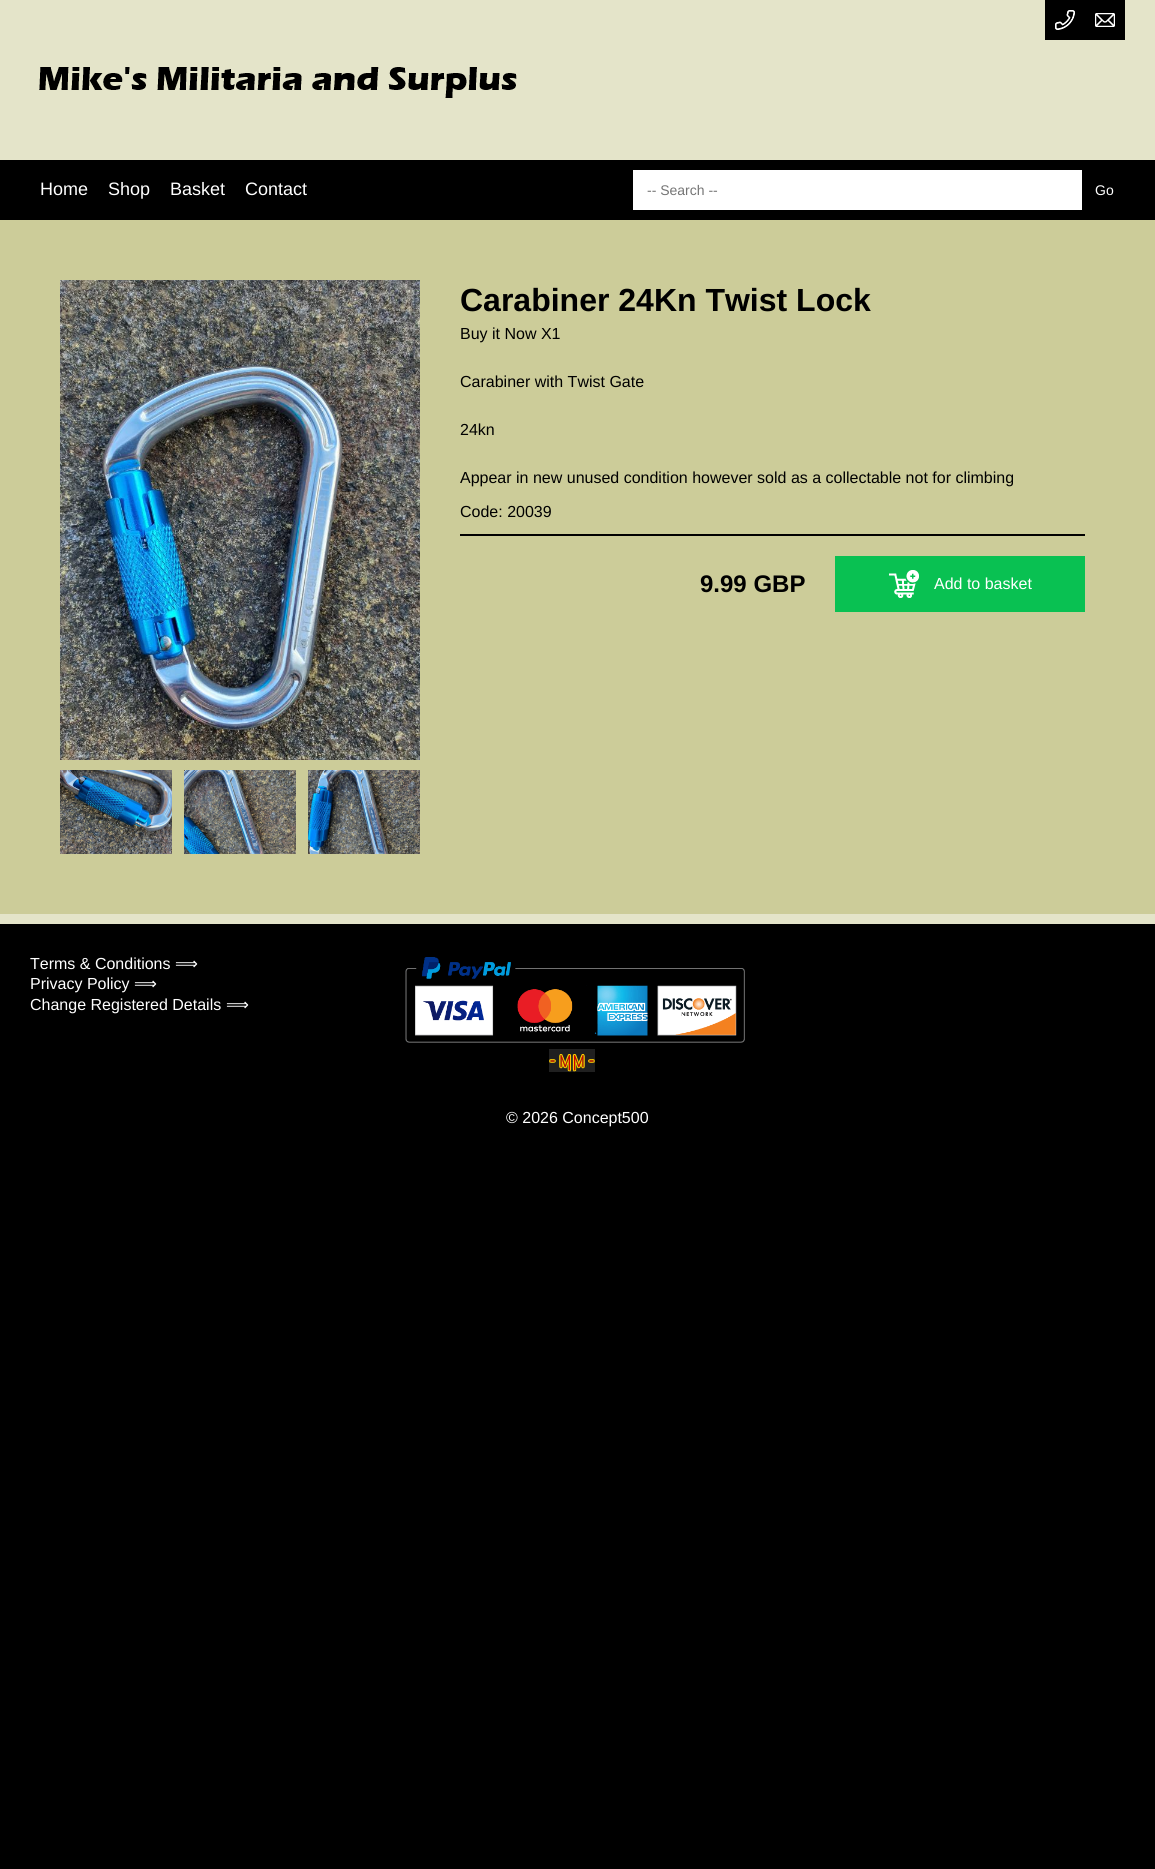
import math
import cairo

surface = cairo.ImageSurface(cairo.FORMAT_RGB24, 1155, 1869)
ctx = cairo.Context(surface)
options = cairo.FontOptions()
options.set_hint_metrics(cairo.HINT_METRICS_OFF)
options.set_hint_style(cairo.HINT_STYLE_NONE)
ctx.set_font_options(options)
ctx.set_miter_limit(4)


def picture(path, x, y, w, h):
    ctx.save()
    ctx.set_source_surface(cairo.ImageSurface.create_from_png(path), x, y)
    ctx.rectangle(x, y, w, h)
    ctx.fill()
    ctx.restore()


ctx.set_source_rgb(0, 0, 0)
ctx.paint()
ctx.set_source_rgb(0.894, 0.894, 0.788)
ctx.rectangle(0, 0, 1155, 160)
ctx.fill()
ctx.set_source_rgb(0, 0, 0)
ctx.rectangle(1045, 0, 80, 40)
ctx.fill()
picture("img1.png", 1055, 10, 20, 20)
picture("img2.png", 1095, 13, 20, 14)
picture("img3.png", 39, 67, 478, 31)
ctx.select_font_face("Liberation Sans")
ctx.set_font_size(18)
ctx.set_source_rgb(1, 1, 1)
ctx.move_to(40, 195)
ctx.show_text("Home")
ctx.move_to(108, 195)
ctx.show_text("Shop")
ctx.move_to(170, 195)
ctx.show_text("Basket")
ctx.move_to(245, 195)
ctx.show_text("Contact")
ctx.rectangle(633, 170, 449, 40)
ctx.fill()
ctx.set_font_size(14)
ctx.set_source_rgb(0.459, 0.459, 0.459)
ctx.move_to(647, 195)
ctx.show_text("-- Search --")
ctx.set_source_rgb(1, 1, 1)
ctx.move_to(1095, 195)
ctx.show_text("Go")
ctx.set_source_rgb(0.8, 0.8, 0.6)
ctx.rectangle(0, 220, 1155, 694)
ctx.fill()
picture("img4.png", 60, 280, 360, 480)
picture("img5.png", 60, 770, 112, 84)
picture("img6.png", 184, 770, 112, 84)
picture("img7.png", 308, 770, 112, 84)
ctx.select_font_face("Liberation Sans", cairo.FONT_SLANT_NORMAL, cairo.FONT_WEIGHT_BOLD)
ctx.set_font_size(32)
ctx.set_source_rgb(0, 0, 0)
ctx.move_to(460, 311)
ctx.show_text("Carabiner 24Kn Twist Lock")
ctx.select_font_face("Liberation Sans")
ctx.set_font_size(16)
ctx.move_to(460, 339)
ctx.show_text("Buy it Now X1")
ctx.move_to(460, 387)
ctx.show_text("Carabiner with Twist Gate")
ctx.move_to(460, 435)
ctx.show_text("24kn")
ctx.move_to(460, 483)
ctx.show_text("Appear in new unused condition however sold as a collectable not for climbing")
ctx.move_to(460, 517)
ctx.show_text("Code: 20039")
ctx.rectangle(460, 534, 625, 2)
ctx.fill()
ctx.select_font_face("Liberation Sans", cairo.FONT_SLANT_NORMAL, cairo.FONT_WEIGHT_BOLD)
ctx.set_font_size(24)
ctx.move_to(700, 592)
ctx.show_text("9.99 GBP")
ctx.set_source_rgb(0.039, 0.757, 0.322)
ctx.rectangle(835, 556, 250, 56)
ctx.fill()
picture("img8.png", 889, 570, 30, 28)
ctx.select_font_face("Liberation Sans")
ctx.set_font_size(16)
ctx.set_source_rgb(1, 1, 1)
ctx.move_to(934, 589)
ctx.show_text("Add to basket")
ctx.set_source_rgb(0.894, 0.894, 0.788)
ctx.rectangle(0, 914, 1155, 10)
ctx.fill()
ctx.set_source_rgb(1, 1, 1)
ctx.move_to(30, 969)
ctx.show_text("Terms & Conditions")
ctx.select_font_face("DejaVu Sans")
ctx.move_to(175, 969)
ctx.show_text("⟹")
ctx.select_font_face("Liberation Sans")
ctx.move_to(30, 989)
ctx.show_text("Privacy Policy")
ctx.select_font_face("DejaVu Sans")
ctx.move_to(134, 989)
ctx.show_text("⟹")
ctx.select_font_face("Liberation Sans")
ctx.move_to(30, 1010)
ctx.show_text("Change Registered Details")
ctx.select_font_face("DejaVu Sans")
ctx.move_to(226, 1010)
ctx.show_text("⟹")
picture("img9.png", 405, 957, 340, 86)
picture("img10.png", 549, 1049, 46, 23)
ctx.select_font_face("Liberation Sans")
ctx.move_to(506, 1123)
ctx.show_text("© 2026 Concept500")
surface.write_to_png("page.png")
